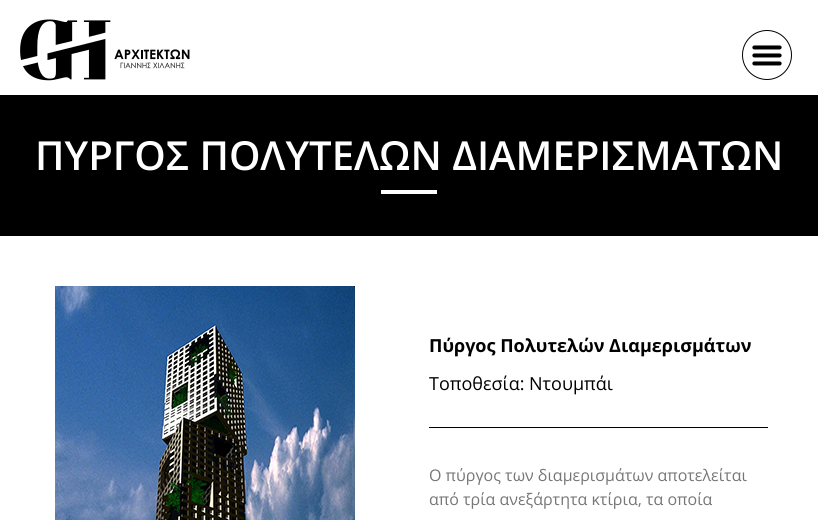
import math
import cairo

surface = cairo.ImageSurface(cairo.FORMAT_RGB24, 818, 520)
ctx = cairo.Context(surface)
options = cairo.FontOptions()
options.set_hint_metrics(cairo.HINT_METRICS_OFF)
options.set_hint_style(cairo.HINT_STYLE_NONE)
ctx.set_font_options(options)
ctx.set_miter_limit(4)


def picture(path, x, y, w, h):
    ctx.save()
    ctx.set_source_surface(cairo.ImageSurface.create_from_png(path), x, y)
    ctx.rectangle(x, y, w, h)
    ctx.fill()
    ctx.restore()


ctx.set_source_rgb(1, 1, 1)
ctx.paint()
picture("img1.png", 20, 19, 170, 62)
ctx.arc(767, 55, 24.5, 0, 2 * math.pi)
ctx.set_source_rgb(0, 0, 0)
ctx.set_line_width(1)
ctx.stroke()
picture("img2.png", 752, 45, 30, 21)
ctx.rectangle(0, 95, 818, 141)
ctx.fill()
ctx.select_font_face("Open Sans SemiBold")
ctx.set_font_size(40)
ctx.set_source_rgb(1, 1, 1)
ctx.move_to(35, 170)
ctx.show_text("ΠΥΡΓΟΣ ΠΟΛΥΤΕΛΩΝ ΔΙΑΜΕΡΙΣΜΑΤΩΝ")
ctx.rectangle(381, 190, 56, 4)
ctx.fill()
picture("img3.png", 55, 286, 300, 234)
ctx.select_font_face("Open Sans", cairo.FONT_SLANT_NORMAL, cairo.FONT_WEIGHT_BOLD)
ctx.set_font_size(18)
ctx.set_source_rgb(0, 0, 0)
ctx.move_to(429, 352)
ctx.show_text("Πύργος Πολυτελών Διαμερισμάτων")
ctx.select_font_face("Open Sans")
ctx.move_to(429, 390)
ctx.show_text("Τοποθεσία: Ντουμπάι")
ctx.rectangle(429, 427, 339, 1)
ctx.fill()
ctx.set_font_size(16)
ctx.set_source_rgb(0.463, 0.463, 0.463)
ctx.move_to(429, 481)
ctx.show_text("Ο πύργος των διαμερισμάτων αποτελείται")
ctx.move_to(429, 505)
ctx.show_text("από τρία ανεξάρτητα κτίρια, τα οποία")
surface.write_to_png("page.png")
